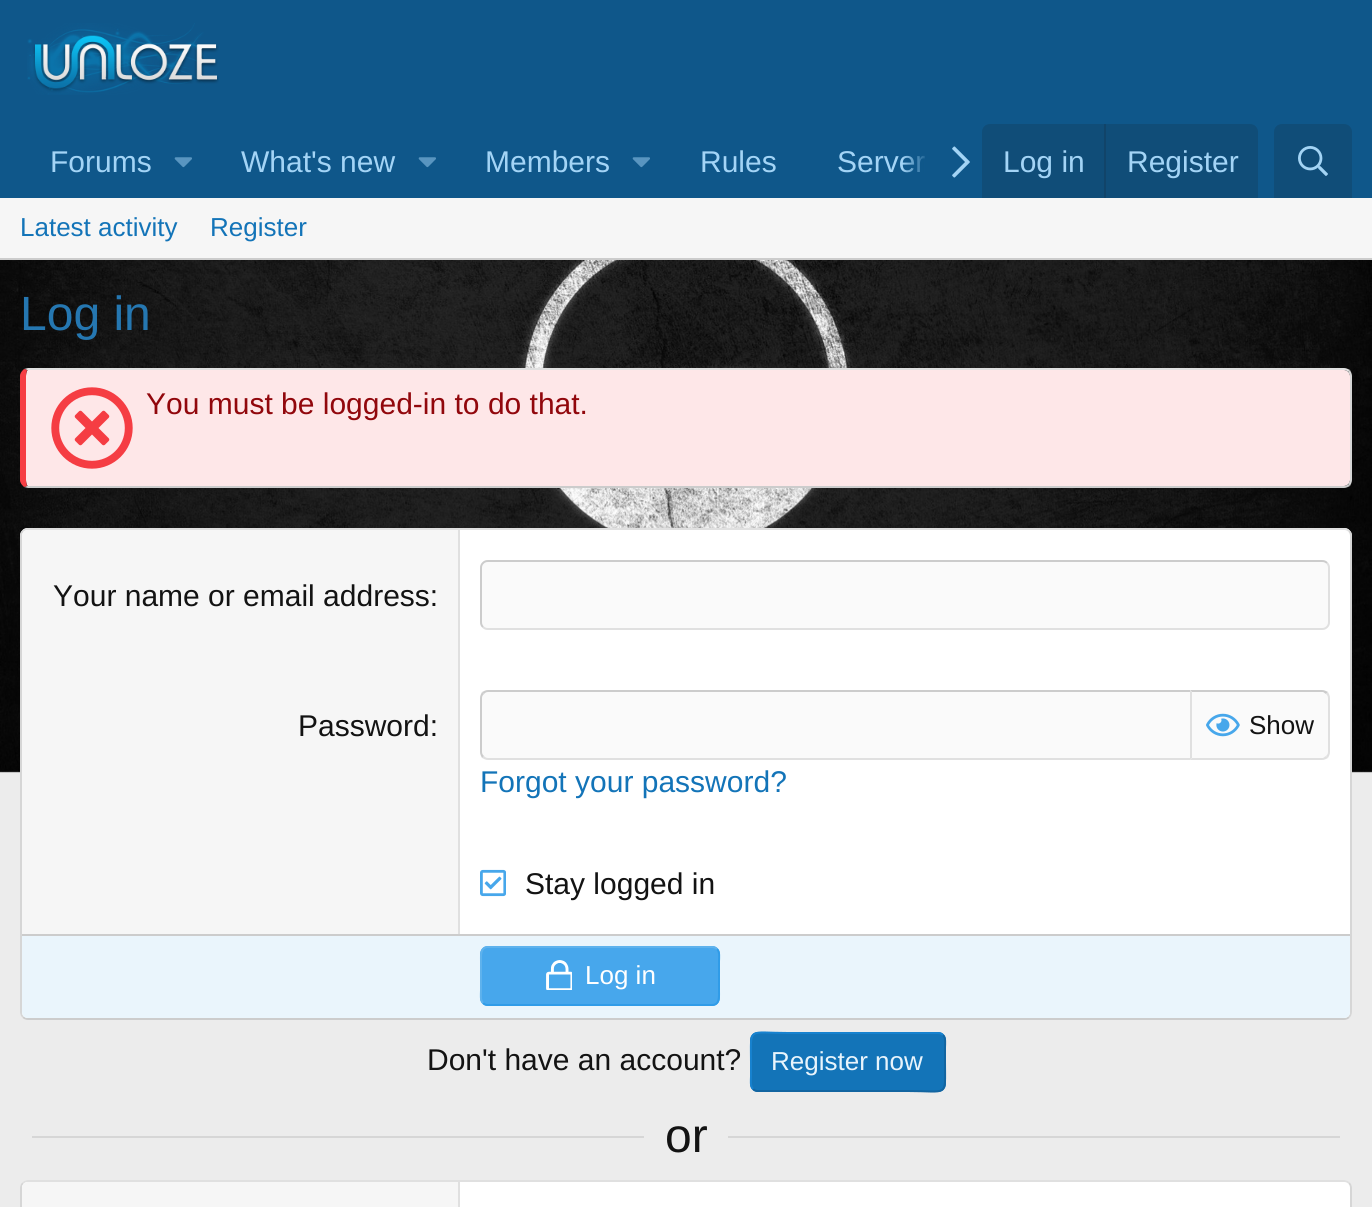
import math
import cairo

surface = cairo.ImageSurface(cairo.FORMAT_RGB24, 1372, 1207)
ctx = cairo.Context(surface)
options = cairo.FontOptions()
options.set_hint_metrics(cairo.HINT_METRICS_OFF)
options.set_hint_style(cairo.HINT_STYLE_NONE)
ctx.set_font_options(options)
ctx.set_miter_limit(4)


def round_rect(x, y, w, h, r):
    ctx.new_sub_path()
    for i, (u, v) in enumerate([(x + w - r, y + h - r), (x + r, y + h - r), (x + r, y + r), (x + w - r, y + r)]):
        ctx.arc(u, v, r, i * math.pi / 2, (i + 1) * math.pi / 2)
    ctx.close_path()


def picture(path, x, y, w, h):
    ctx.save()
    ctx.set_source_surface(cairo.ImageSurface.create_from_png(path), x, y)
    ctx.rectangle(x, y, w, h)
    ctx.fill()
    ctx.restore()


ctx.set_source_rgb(0.922, 0.922, 0.922)
ctx.paint()
picture("img1.png", 0, 260, 1372, 513)
ctx.set_source_rgb(0.059, 0.341, 0.541)
ctx.rectangle(0, 0, 1372, 198)
ctx.fill()
picture("img2.png", 27, 23, 192, 72)
ctx.select_font_face("Liberation Sans")
ctx.set_font_size(30)
ctx.set_source_rgb(0.639, 0.831, 0.961)
ctx.move_to(50, 172)
ctx.show_text("Forums")
picture("img3.png", 174, 157, 18, 11)
ctx.move_to(241, 172)
ctx.show_text("What's new")
picture("img3.png", 418, 157, 18, 11)
ctx.move_to(485, 172)
ctx.show_text("Members")
picture("img3.png", 632, 157, 18, 11)
ctx.move_to(700, 172)
ctx.show_text("Rules")
ctx.move_to(837, 172)
ctx.show_text("Server")
gradient = cairo.LinearGradient(902, 161, 982, 161)
gradient.add_color_stop_rgba(0, 0.059, 0.341, 0.541, 0)
gradient.add_color_stop_rgba(0.33, 0.059, 0.341, 0.541, 1)
ctx.set_source(gradient)
ctx.rectangle(903, 155, 22, 18)
ctx.fill()
picture("img4.png", 952, 146, 18, 32)
ctx.set_source_rgb(0.063, 0.302, 0.471)
ctx.new_path()
ctx.move_to(990, 124)
ctx.line_to(1250, 124)
ctx.curve_to(1254.5, 124, 1258, 127.5, 1258, 132)
ctx.line_to(1258, 198)
ctx.line_to(982, 198)
ctx.line_to(982, 132)
ctx.curve_to(982, 127.5, 985.5, 124, 990, 124)
ctx.close_path()
ctx.fill()
ctx.set_source_rgb(0.639, 0.831, 0.961)
ctx.move_to(1003, 172)
ctx.show_text("Log in")
ctx.set_source_rgb(0.067, 0.267, 0.412)
ctx.rectangle(1104, 124, 2, 74)
ctx.fill()
ctx.set_source_rgb(0.639, 0.831, 0.961)
ctx.move_to(1127, 172)
ctx.show_text("Register")
ctx.set_source_rgb(0.063, 0.302, 0.471)
ctx.new_path()
ctx.move_to(1282, 124)
ctx.line_to(1344, 124)
ctx.curve_to(1348.5, 124, 1352, 127.5, 1352, 132)
ctx.line_to(1352, 198)
ctx.line_to(1274, 198)
ctx.line_to(1274, 132)
ctx.curve_to(1274, 127.5, 1277.5, 124, 1282, 124)
ctx.close_path()
ctx.fill()
picture("img5.png", 1298, 146, 30, 30)
ctx.set_source_rgb(0.961, 0.961, 0.961)
ctx.rectangle(0, 198, 1372, 60)
ctx.fill()
ctx.set_source_rgb(0.8, 0.8, 0.8)
ctx.rectangle(0, 258, 1372, 2)
ctx.fill()
ctx.set_font_size(26)
ctx.set_source_rgb(0.078, 0.455, 0.722)
ctx.move_to(20, 236)
ctx.show_text("Latest activity")
ctx.move_to(210, 236)
ctx.show_text("Register")
ctx.set_font_size(48)
ctx.set_source_rgb(0.145, 0.467, 0.694)
ctx.move_to(20, 330)
ctx.show_text("Log in")
ctx.set_source_rgb(0.996, 0.906, 0.91)
ctx.new_path()
ctx.move_to(28, 370)
ctx.line_to(1344, 370)
ctx.curve_to(1347, 370, 1350, 373, 1350, 376)
ctx.line_to(1350, 480)
ctx.curve_to(1350, 483, 1347, 486, 1344, 486)
ctx.line_to(28, 486)
ctx.curve_to(27, 486, 26, 483, 26, 480)
ctx.line_to(26, 376)
ctx.curve_to(26, 373, 27, 370, 28, 370)
ctx.close_path()
ctx.fill()
ctx.set_source_rgb(0.878, 0.878, 0.878)
ctx.new_path()
ctx.move_to(28, 368)
ctx.line_to(24, 369)
ctx.line_to(27, 370)
ctx.line_to(28, 370)
ctx.line_to(1344, 370)
ctx.curve_to(1346, 370, 1347, 371, 1348, 372)
ctx.line_to(1350, 370)
ctx.curve_to(1348, 369, 1346, 368, 1344, 368)
ctx.close_path()
ctx.fill()
ctx.set_source_rgb(0.839, 0.839, 0.839)
ctx.new_path()
ctx.move_to(1352, 480)
ctx.line_to(1352, 376)
ctx.curve_to(1352, 374, 1351, 372, 1350, 370)
ctx.line_to(1348, 372)
ctx.line_to(1350, 375)
ctx.line_to(1350, 481)
ctx.line_to(1348, 484)
ctx.line_to(1350, 486)
ctx.curve_to(1351, 484, 1352, 482, 1352, 480)
ctx.close_path()
ctx.fill()
ctx.set_source_rgb(0.8, 0.8, 0.8)
ctx.new_path()
ctx.move_to(28, 488)
ctx.line_to(1344, 488)
ctx.curve_to(1346, 488, 1348, 487, 1350, 486)
ctx.line_to(1348, 484)
ctx.curve_to(1347, 485, 1346, 486, 1344, 486)
ctx.line_to(28, 486)
ctx.line_to(27, 486)
ctx.line_to(24, 487)
ctx.close_path()
ctx.fill()
ctx.set_source_rgb(0.961, 0.239, 0.263)
ctx.new_path()
ctx.move_to(20, 376)
ctx.line_to(20, 480)
ctx.curve_to(20, 483, 22, 485, 24, 487)
ctx.line_to(27, 486)
ctx.curve_to(27, 485, 26, 482, 26, 480)
ctx.line_to(26, 376)
ctx.curve_to(26, 374, 27, 371, 27, 370)
ctx.line_to(24, 369)
ctx.curve_to(22, 371, 20, 373, 20, 376)
ctx.close_path()
ctx.fill()
picture("img6.png", 51, 387, 82, 82)
ctx.set_font_size(30)
ctx.set_source_rgb(0.569, 0.031, 0.047)
ctx.move_to(146, 414)
ctx.show_text("You must be logged-in to do that.")
ctx.set_source_rgb(1, 1, 1)
round_rect(20, 528, 1332, 492, 8)
ctx.fill()
ctx.new_path()
ctx.move_to(23, 531)
ctx.curve_to(24.5, 529.5, 26, 529, 28, 529)
ctx.line_to(1344, 529)
ctx.curve_to(1346, 529, 1347.5, 529.5, 1349, 531)
ctx.set_source_rgb(0.878, 0.878, 0.878)
ctx.stroke()
ctx.new_path()
ctx.move_to(1349, 531)
ctx.curve_to(1350.5, 532.5, 1351, 534, 1351, 536)
ctx.line_to(1351, 1012)
ctx.curve_to(1351, 1014, 1350.5, 1015.5, 1349, 1017)
ctx.set_source_rgb(0.839, 0.839, 0.839)
ctx.stroke()
ctx.new_path()
ctx.move_to(1349, 1017)
ctx.curve_to(1347.5, 1018.5, 1346, 1019, 1344, 1019)
ctx.line_to(28, 1019)
ctx.curve_to(26, 1019, 24.5, 1018.5, 23, 1017)
ctx.set_source_rgb(0.8, 0.8, 0.8)
ctx.stroke()
ctx.new_path()
ctx.move_to(23, 1017)
ctx.curve_to(21.5, 1015.5, 21, 1014, 21, 1012)
ctx.line_to(21, 536)
ctx.curve_to(21, 534, 21.5, 532.5, 23, 531)
ctx.set_source_rgb(0.839, 0.839, 0.839)
ctx.stroke()
ctx.set_source_rgb(0.961, 0.961, 0.961)
ctx.new_path()
ctx.move_to(28, 530)
ctx.line_to(460, 530)
ctx.line_to(460, 660)
ctx.line_to(22, 660)
ctx.line_to(22, 536)
ctx.curve_to(22, 532.5, 24.5, 530, 28, 530)
ctx.close_path()
ctx.fill()
ctx.set_source_rgb(0.878, 0.878, 0.878)
ctx.rectangle(458, 530, 2, 404)
ctx.fill()
ctx.set_source_rgb(0.078, 0.078, 0.078)
ctx.move_to(53, 606)
ctx.show_text("Your name or email address:")
ctx.set_source_rgb(0.98, 0.98, 0.98)
round_rect(480, 560, 850, 70, 8)
ctx.fill()
ctx.new_path()
ctx.move_to(1327, 563)
ctx.curve_to(1328.5, 564.5, 1329, 566, 1329, 568)
ctx.line_to(1329, 622)
ctx.curve_to(1329, 624, 1328.5, 625.5, 1327, 627)
ctx.curve_to(1325.5, 628.5, 1324, 629, 1322, 629)
ctx.line_to(488, 629)
ctx.curve_to(486, 629, 484.5, 628.5, 483, 627)
ctx.set_source_rgb(0.878, 0.878, 0.878)
ctx.stroke()
ctx.new_path()
ctx.move_to(483, 627)
ctx.curve_to(481.5, 625.5, 481, 624, 481, 622)
ctx.line_to(481, 568)
ctx.curve_to(481, 566, 481.5, 564.5, 483, 563)
ctx.curve_to(484.5, 561.5, 486, 561, 488, 561)
ctx.line_to(1322, 561)
ctx.curve_to(1324, 561, 1325.5, 561.5, 1327, 563)
ctx.set_source_rgb(0.8, 0.8, 0.8)
ctx.stroke()
ctx.set_source_rgb(0.961, 0.961, 0.961)
ctx.rectangle(22, 660, 436, 274)
ctx.fill()
ctx.set_source_rgb(0.078, 0.078, 0.078)
ctx.move_to(298, 736)
ctx.show_text("Password:")
ctx.set_source_rgb(0.98, 0.98, 0.98)
ctx.new_path()
ctx.move_to(488, 690)
ctx.line_to(1190, 690)
ctx.line_to(1190, 760)
ctx.line_to(488, 760)
ctx.curve_to(483.5, 760, 480, 756.5, 480, 752)
ctx.line_to(480, 698)
ctx.curve_to(480, 693.5, 483.5, 690, 488, 690)
ctx.close_path()
ctx.fill()
ctx.set_source_rgb(0.8, 0.8, 0.8)
ctx.new_path()
ctx.move_to(488, 690)
ctx.curve_to(486, 690, 484, 691, 482, 692)
ctx.line_to(484, 694)
ctx.curve_to(485, 693, 486, 692, 488, 692)
ctx.line_to(1190, 692)
ctx.line_to(1190, 690)
ctx.close_path()
ctx.fill()
ctx.set_source_rgb(0.878, 0.878, 0.878)
ctx.new_path()
ctx.move_to(1190, 760)
ctx.line_to(1190, 758)
ctx.line_to(488, 758)
ctx.curve_to(486, 758, 485, 757, 484, 756)
ctx.line_to(482, 758)
ctx.curve_to(484, 759, 486, 760, 488, 760)
ctx.close_path()
ctx.fill()
ctx.set_source_rgb(0.8, 0.8, 0.8)
ctx.new_path()
ctx.move_to(480, 698)
ctx.line_to(480, 752)
ctx.curve_to(480, 754, 481, 756, 482, 758)
ctx.line_to(484, 756)
ctx.curve_to(483, 755, 482, 754, 482, 752)
ctx.line_to(482, 698)
ctx.curve_to(482, 696, 483, 695, 484, 694)
ctx.line_to(482, 692)
ctx.curve_to(481, 694, 480, 696, 480, 698)
ctx.close_path()
ctx.fill()
ctx.set_source_rgb(0.98, 0.98, 0.98)
ctx.new_path()
ctx.move_to(1190, 690)
ctx.line_to(1322, 690)
ctx.curve_to(1326.5, 690, 1330, 693.5, 1330, 698)
ctx.line_to(1330, 752)
ctx.curve_to(1330, 756.5, 1326.5, 760, 1322, 760)
ctx.line_to(1190, 760)
ctx.close_path()
ctx.fill()
ctx.set_source_rgb(0.8, 0.8, 0.8)
ctx.new_path()
ctx.move_to(1190, 690)
ctx.line_to(1192, 692)
ctx.line_to(1323, 692)
ctx.line_to(1326, 694)
ctx.line_to(1328, 692)
ctx.curve_to(1326, 691, 1324, 690, 1322, 690)
ctx.close_path()
ctx.fill()
ctx.set_source_rgb(0.878, 0.878, 0.878)
ctx.new_path()
ctx.move_to(1330, 752)
ctx.line_to(1330, 698)
ctx.curve_to(1330, 696, 1329, 694, 1328, 692)
ctx.line_to(1326, 694)
ctx.curve_to(1327, 695, 1328, 696, 1328, 698)
ctx.line_to(1328, 752)
ctx.curve_to(1328, 754, 1327, 755, 1326, 756)
ctx.line_to(1328, 758)
ctx.curve_to(1329, 756, 1330, 754, 1330, 752)
ctx.close_path()
ctx.fill()
ctx.new_path()
ctx.move_to(1322, 760)
ctx.curve_to(1324, 760, 1326, 759, 1328, 758)
ctx.line_to(1326, 756)
ctx.line_to(1323, 758)
ctx.line_to(1192, 758)
ctx.line_to(1190, 760)
ctx.close_path()
ctx.fill()
ctx.new_path()
ctx.move_to(1190, 690)
ctx.line_to(1190, 760)
ctx.line_to(1192, 758)
ctx.line_to(1192, 692)
ctx.close_path()
ctx.fill()
picture("img7.png", 1206, 713, 34, 24)
ctx.set_font_size(26)
ctx.set_source_rgb(0.078, 0.078, 0.078)
ctx.move_to(1249, 734)
ctx.show_text("Show")
ctx.set_font_size(30)
ctx.set_source_rgb(0.078, 0.455, 0.722)
ctx.move_to(480, 792)
ctx.show_text("Forgot your password?")
picture("img8.png", 480, 869, 26, 28)
ctx.set_source_rgb(0.078, 0.078, 0.078)
ctx.move_to(525, 894)
ctx.show_text("Stay logged in")
ctx.set_source_rgba(0.91, 0.957, 0.988, 0.9)
ctx.new_path()
ctx.move_to(22, 934)
ctx.line_to(1350, 934)
ctx.line_to(1350, 1012)
ctx.curve_to(1350, 1015.5, 1347.5, 1018, 1344, 1018)
ctx.line_to(28, 1018)
ctx.curve_to(24.5, 1018, 22, 1015.5, 22, 1012)
ctx.close_path()
ctx.fill()
ctx.set_source_rgb(0.8, 0.8, 0.8)
ctx.rectangle(22, 934, 1328, 2)
ctx.fill()
ctx.set_source_rgb(0.278, 0.655, 0.922)
round_rect(480, 946, 240, 60, 8)
ctx.fill()
ctx.new_path()
ctx.move_to(717, 949)
ctx.curve_to(720, 952, 719, 957.5, 719, 961.5)
ctx.line_to(719, 990.5)
ctx.curve_to(719, 996, 720, 1005, 712, 1005)
ctx.line_to(487.5, 1005)
ctx.curve_to(485.5, 1005, 484, 1004, 483, 1003)
ctx.set_source_rgb(0.188, 0.612, 0.91)
ctx.stroke()
ctx.new_path()
ctx.move_to(483, 1003)
ctx.curve_to(480, 1000, 481, 994.5, 481, 990.5)
ctx.line_to(481, 961.5)
ctx.curve_to(481, 956, 480, 947, 488, 947)
ctx.line_to(712.5, 947)
ctx.curve_to(714.5, 947, 716, 948, 717, 949)
ctx.set_source_rgb(0.369, 0.698, 0.929)
ctx.stroke()
picture("img9.png", 546, 960, 26, 30)
ctx.set_font_size(26)
ctx.set_source_rgb(1, 1, 1)
ctx.move_to(585, 984)
ctx.show_text("Log in")
ctx.set_font_size(30)
ctx.set_source_rgb(0.078, 0.078, 0.078)
ctx.move_to(427, 1070)
ctx.show_text("Don't have an account?")
ctx.set_source_rgb(0.078, 0.455, 0.722)
round_rect(750, 1032, 196, 60, 8)
ctx.fill()
ctx.new_path()
ctx.move_to(943, 1035)
ctx.curve_to(946, 1038, 945, 1043.5, 945, 1047.5)
ctx.line_to(945, 1062)
ctx.curve_to(945, 1098, 949, 1091, 908, 1091)
ctx.line_to(758, 1091)
ctx.curve_to(756, 1091, 754.5, 1090.5, 753, 1089)
ctx.set_source_rgb(0.071, 0.396, 0.631)
ctx.stroke()
ctx.new_path()
ctx.move_to(753, 1089)
ctx.curve_to(750, 1086, 751, 1080.5, 751, 1076.5)
ctx.line_to(751, 1062)
ctx.curve_to(751, 1026, 747, 1033, 788, 1033)
ctx.line_to(938, 1033)
ctx.curve_to(940, 1033, 941.5, 1033.5, 943, 1035)
ctx.set_source_rgb(0.09, 0.51, 0.812)
ctx.stroke()
ctx.set_font_size(26)
ctx.set_source_rgb(0.91, 0.957, 0.988)
ctx.move_to(771, 1070)
ctx.show_text("Register now")
ctx.set_source_rgb(0.839, 0.839, 0.839)
ctx.rectangle(32, 1136, 612, 2)
ctx.fill()
ctx.set_font_size(48)
ctx.set_source_rgb(0.078, 0.078, 0.078)
ctx.move_to(665, 1152)
ctx.show_text("or")
ctx.set_source_rgb(0.839, 0.839, 0.839)
ctx.rectangle(728, 1136, 612, 2)
ctx.fill()
ctx.set_source_rgb(1, 1, 1)
round_rect(20, 1180, 1332, 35, 8)
ctx.fill()
ctx.new_path()
ctx.move_to(23, 1183)
ctx.curve_to(24.5, 1181.5, 26, 1181, 28, 1181)
ctx.line_to(1344, 1181)
ctx.curve_to(1346, 1181, 1347.5, 1181.5, 1349, 1183)
ctx.set_source_rgb(0.878, 0.878, 0.878)
ctx.stroke()
ctx.new_path()
ctx.move_to(1349, 1183)
ctx.curve_to(1350.5, 1184.5, 1351, 1186, 1351, 1188)
ctx.line_to(1351, 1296)
ctx.curve_to(1351, 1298, 1350.5, 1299.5, 1349, 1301)
ctx.set_source_rgb(0.839, 0.839, 0.839)
ctx.stroke()
ctx.new_path()
ctx.move_to(23, 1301)
ctx.curve_to(21.5, 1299.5, 21, 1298, 21, 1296)
ctx.line_to(21, 1188)
ctx.curve_to(21, 1186, 21.5, 1184.5, 23, 1183)
ctx.stroke()
ctx.set_source_rgb(0.961, 0.961, 0.961)
ctx.new_path()
ctx.move_to(28, 1182)
ctx.line_to(460, 1182)
ctx.line_to(460, 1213)
ctx.line_to(28, 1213)
ctx.curve_to(24.5, 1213, 22, 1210.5, 22, 1207)
ctx.line_to(22, 1188)
ctx.curve_to(22, 1184.5, 24.5, 1182, 28, 1182)
ctx.close_path()
ctx.fill()
ctx.set_source_rgb(0.878, 0.878, 0.878)
ctx.rectangle(458, 1182, 2, 25)
ctx.fill()
surface.write_to_png("page.png")
